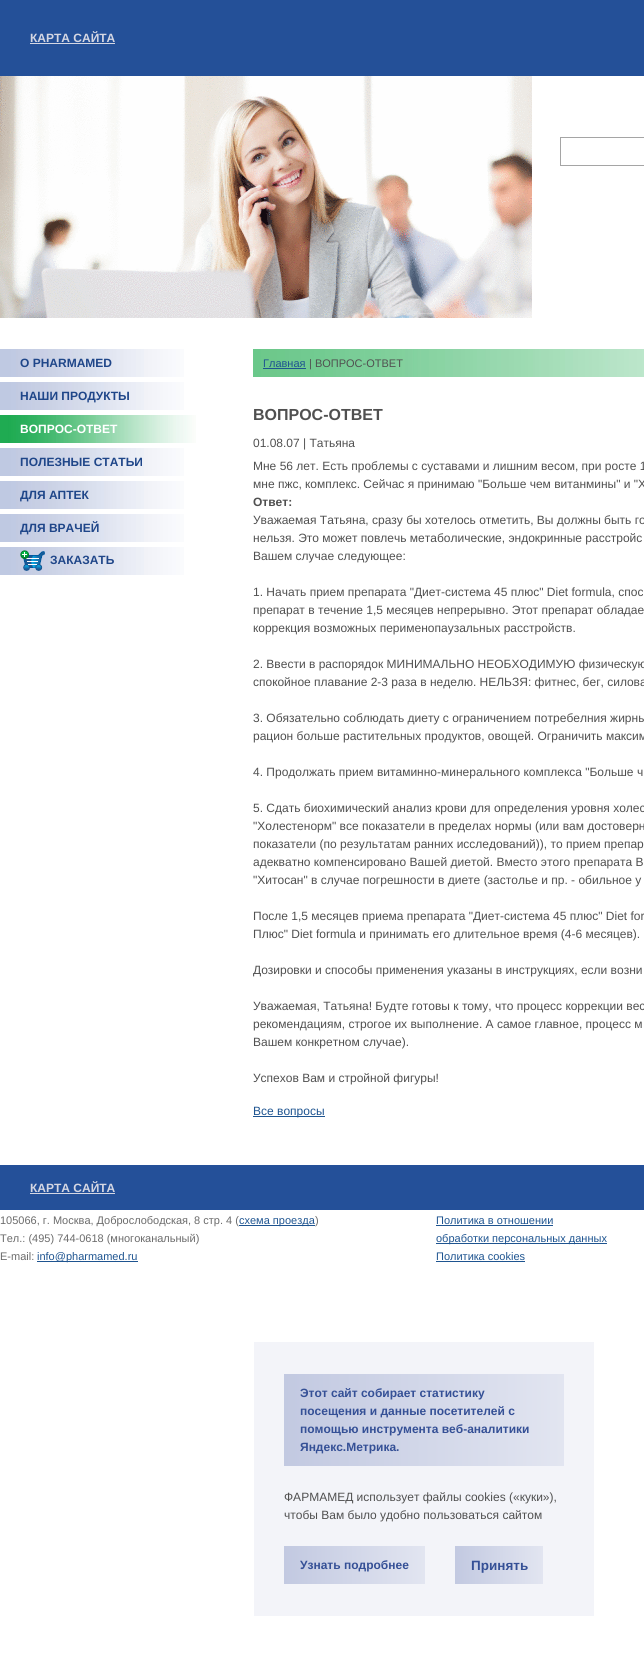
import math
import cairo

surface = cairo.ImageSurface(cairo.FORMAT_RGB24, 644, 1666)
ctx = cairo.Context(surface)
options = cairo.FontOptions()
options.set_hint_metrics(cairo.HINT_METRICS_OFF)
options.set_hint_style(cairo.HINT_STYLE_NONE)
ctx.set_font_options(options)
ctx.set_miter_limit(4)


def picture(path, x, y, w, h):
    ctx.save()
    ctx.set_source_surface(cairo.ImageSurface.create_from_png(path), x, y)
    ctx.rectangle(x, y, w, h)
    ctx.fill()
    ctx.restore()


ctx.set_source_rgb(1, 1, 1)
ctx.paint()
ctx.set_source_rgb(0.141, 0.314, 0.596)
ctx.rectangle(0, 0, 644, 76)
ctx.fill()
ctx.select_font_face("Liberation Sans", cairo.FONT_SLANT_NORMAL, cairo.FONT_WEIGHT_BOLD)
ctx.set_font_size(12)
ctx.set_source_rgb(0.835, 0.843, 0.89)
ctx.move_to(30, 42)
ctx.show_text("КАРТА САЙТА")
ctx.rectangle(30, 43, 85, 1)
ctx.fill()
picture("img1.png", 0, 76, 532, 242)
ctx.rectangle(560.5, 137.5, 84, 28)
ctx.set_source_rgb(0.647, 0.647, 0.647)
ctx.set_line_width(1)
ctx.stroke()
picture("img2.png", 0, 349, 184, 28)
ctx.set_source_rgb(0.122, 0.275, 0.537)
ctx.move_to(20, 367)
ctx.show_text("О PHARMAMED")
picture("img2.png", 0, 382, 184, 28)
ctx.move_to(20, 400)
ctx.show_text("НАШИ ПРОДУКТЫ")
picture("img3.png", 0, 415, 196, 28)
ctx.set_source_rgb(1, 1, 1)
ctx.move_to(20, 433)
ctx.show_text("ВОПРОС-ОТВЕТ")
picture("img2.png", 0, 448, 184, 28)
ctx.set_source_rgb(0.122, 0.275, 0.537)
ctx.move_to(20, 466)
ctx.show_text("ПОЛЕЗНЫЕ СТАТЬИ")
picture("img2.png", 0, 481, 184, 28)
ctx.move_to(20, 499)
ctx.show_text("ДЛЯ АПТЕК")
picture("img2.png", 0, 514, 184, 28)
ctx.move_to(20, 532)
ctx.show_text("ДЛЯ ВРАЧЕЙ")
picture("img2.png", 0, 547, 184, 28)
picture("img4.png", 20, 550, 25, 21)
ctx.move_to(50, 564)
ctx.show_text("ЗАКАЗАТЬ")
picture("img5.png", 253, 349, 391, 28)
ctx.select_font_face("Liberation Sans")
ctx.set_font_size(11)
ctx.set_source_rgb(0.118, 0.329, 0.565)
ctx.move_to(263, 367)
ctx.show_text("Главная")
ctx.rectangle(263, 368, 43, 1)
ctx.fill()
ctx.set_source_rgb(0.314, 0.314, 0.314)
ctx.move_to(309, 367)
ctx.show_text("| ВОПРОС-ОТВЕТ")
ctx.select_font_face("Liberation Sans", cairo.FONT_SLANT_NORMAL, cairo.FONT_WEIGHT_BOLD)
ctx.set_font_size(16)
ctx.move_to(253, 420)
ctx.show_text("ВОПРОС-ОТВЕТ")
ctx.select_font_face("Liberation Sans")
ctx.set_font_size(12)
ctx.move_to(253, 447)
ctx.show_text("01.08.07 | Татьяна")
ctx.move_to(253, 470)
ctx.show_text("Мне 56 лет. Есть проблемы с суставами и лишним весом, при росте 1")
ctx.move_to(253, 488)
ctx.show_text("мне пжс, комплекс. Сейчас я принимаю \"Больше чем витанмины\" и \"Х")
ctx.select_font_face("Liberation Sans", cairo.FONT_SLANT_NORMAL, cairo.FONT_WEIGHT_BOLD)
ctx.move_to(253, 506)
ctx.show_text("Ответ:")
ctx.select_font_face("Liberation Sans")
ctx.move_to(253, 524)
ctx.show_text("Уважаемая Татьяна, сразу бы хотелось отметить, Вы должны быть го")
ctx.move_to(253, 542)
ctx.show_text("нельзя. Это может повлечь метаболические, эндокринные расстройс")
ctx.move_to(253, 560)
ctx.show_text("Вашем случае следующее:")
ctx.move_to(253, 596)
ctx.show_text("1. Начать прием препарата \"Диет-система 45 плюс\" Diet formula, спос")
ctx.move_to(253, 614)
ctx.show_text("препарат в течение 1,5 месяцев непрерывно. Этот препарат обладае")
ctx.move_to(253, 632)
ctx.show_text("коррекция возможных перименопаузальных расстройств.")
ctx.move_to(253, 668)
ctx.show_text("2. Ввести в распорядок МИНИМАЛЬНО НЕОБХОДИМУЮ физическую")
ctx.move_to(253, 686)
ctx.show_text("спокойное плавание 2-3 раза в неделю. НЕЛЬЗЯ: фитнес, бег, силова")
ctx.move_to(253, 722)
ctx.show_text("3. Обязательно соблюдать диету с ограничением потребелния жирны")
ctx.move_to(253, 740)
ctx.show_text("рацион больше растительных продуктов, овощей. Ограничить максим")
ctx.move_to(253, 776)
ctx.show_text("4. Продолжать прием витаминно-минерального комплекса \"Больше ч")
ctx.move_to(253, 812)
ctx.show_text("5. Сдать биохимический анализ крови для определения уровня холес")
ctx.move_to(253, 830)
ctx.show_text("\"Холестенорм\" все показатели в пределах нормы (или вам достоверн")
ctx.move_to(253, 848)
ctx.show_text("показатели (по результатам ранних исследований)), то прием препар")
ctx.move_to(253, 866)
ctx.show_text("адекватно компенсировано Вашей диетой. Вместо этого препарата В")
ctx.move_to(253, 884)
ctx.show_text("\"Хитосан\" в случае погрешности в диете (застолье и пр. - обильное у")
ctx.move_to(253, 920)
ctx.show_text("После 1,5 месяцев приема препарата \"Диет-система 45 плюс\" Diet for")
ctx.move_to(253, 938)
ctx.show_text("Плюс\" Diet formula и принимать его длительное время (4-6 месяцев).")
ctx.move_to(253, 974)
ctx.show_text("Дозировки и способы применения указаны в инструкциях, если возни")
ctx.move_to(253, 1010)
ctx.show_text("Уважаемая, Татьяна! Будте готовы к тому, что процесс коррекции вес")
ctx.move_to(253, 1028)
ctx.show_text("рекомендациям, строгое их выполнение. А самое главное, процесс м")
ctx.move_to(253, 1046)
ctx.show_text("Вашем конкретном случае).")
ctx.move_to(253, 1082)
ctx.show_text("Успехов Вам и стройной фигуры!")
ctx.set_source_rgb(0.118, 0.329, 0.565)
ctx.rectangle(253, 1116, 72, 1)
ctx.fill()
ctx.move_to(253, 1115)
ctx.show_text("Все вопросы")
ctx.set_source_rgb(0.141, 0.314, 0.6)
ctx.rectangle(0, 1165, 644, 45)
ctx.fill()
ctx.select_font_face("Liberation Sans", cairo.FONT_SLANT_NORMAL, cairo.FONT_WEIGHT_BOLD)
ctx.set_source_rgb(0.835, 0.843, 0.89)
ctx.move_to(30, 1192)
ctx.show_text("КАРТА САЙТА")
ctx.rectangle(30, 1193, 85, 1)
ctx.fill()
ctx.select_font_face("Liberation Sans")
ctx.set_font_size(11)
ctx.set_source_rgb(0.42, 0.42, 0.42)
ctx.move_to(0, 1224)
ctx.show_text("105066, г. Москва, Доброслободская, 8 стр. 4 (")
ctx.set_source_rgb(0.118, 0.329, 0.565)
ctx.rectangle(239, 1225, 76, 1)
ctx.fill()
ctx.move_to(239, 1224)
ctx.show_text("схема проезда")
ctx.set_source_rgb(0.42, 0.42, 0.42)
ctx.move_to(315, 1224)
ctx.show_text(")")
ctx.move_to(0, 1242)
ctx.show_text("Тел.: (495) 744-0618 (многоканальный)")
ctx.move_to(0, 1260)
ctx.show_text("E-mail:")
ctx.set_source_rgb(0.118, 0.329, 0.565)
ctx.rectangle(37, 1261, 101, 1)
ctx.fill()
ctx.move_to(37, 1260)
ctx.show_text("info@pharmamed.ru")
ctx.move_to(436, 1224)
ctx.show_text("Политика в отношении")
ctx.rectangle(436, 1225, 117, 1)
ctx.fill()
ctx.rectangle(436, 1243, 171, 1)
ctx.fill()
ctx.move_to(436, 1242)
ctx.show_text("обработки персональных данных")
ctx.move_to(436, 1260)
ctx.show_text("Политика cookies")
ctx.rectangle(436, 1261, 89, 1)
ctx.fill()
ctx.set_source_rgb(0.953, 0.957, 0.976)
ctx.rectangle(254, 1342, 340, 274)
ctx.fill()
gradient = cairo.LinearGradient(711, 1420, 284, 1420)
gradient.add_color_stop_rgba(0, 0.953, 0.957, 0.976, 1)
gradient.add_color_stop_rgba(1, 0.761, 0.788, 0.882, 1)
ctx.set_source(gradient)
ctx.rectangle(284, 1374, 280, 92)
ctx.fill()
ctx.select_font_face("Liberation Sans", cairo.FONT_SLANT_NORMAL, cairo.FONT_WEIGHT_BOLD)
ctx.set_font_size(12)
ctx.set_source_rgb(0.208, 0.314, 0.588)
ctx.move_to(300, 1397)
ctx.show_text("Этот сайт собирает статистику")
ctx.move_to(300, 1415)
ctx.show_text("посещения и данные посетителей с")
ctx.move_to(300, 1433)
ctx.show_text("помощью инструмента веб-аналитики")
ctx.move_to(300, 1451)
ctx.show_text("Яндекс.Метрика.")
ctx.select_font_face("Liberation Sans")
ctx.set_source_rgb(0.314, 0.314, 0.314)
ctx.move_to(284, 1501)
ctx.show_text("ФАРМАМЕД использует файлы cookies («куки»),")
ctx.move_to(284, 1519)
ctx.show_text("чтобы Вам было удобно пользоваться сайтом")
gradient = cairo.LinearGradient(499, 1565, 284, 1565)
gradient.add_color_stop_rgba(0, 0.953, 0.957, 0.976, 1)
gradient.add_color_stop_rgba(1, 0.761, 0.788, 0.882, 1)
ctx.set_source(gradient)
ctx.rectangle(284, 1546, 141, 38)
ctx.fill()
ctx.select_font_face("Liberation Sans", cairo.FONT_SLANT_NORMAL, cairo.FONT_WEIGHT_BOLD)
ctx.set_source_rgb(0.208, 0.314, 0.588)
ctx.move_to(300, 1569)
ctx.show_text("Узнать подробнее")
gradient = cairo.LinearGradient(589, 1565, 455, 1565)
gradient.add_color_stop_rgba(0, 0.953, 0.957, 0.976, 1)
gradient.add_color_stop_rgba(1, 0.761, 0.788, 0.882, 1)
ctx.set_source(gradient)
ctx.rectangle(455, 1546, 88, 38)
ctx.fill()
ctx.set_font_size(13.5)
ctx.set_source_rgb(0.208, 0.314, 0.588)
ctx.move_to(471, 1570)
ctx.show_text("Принять")
surface.write_to_png("page.png")
